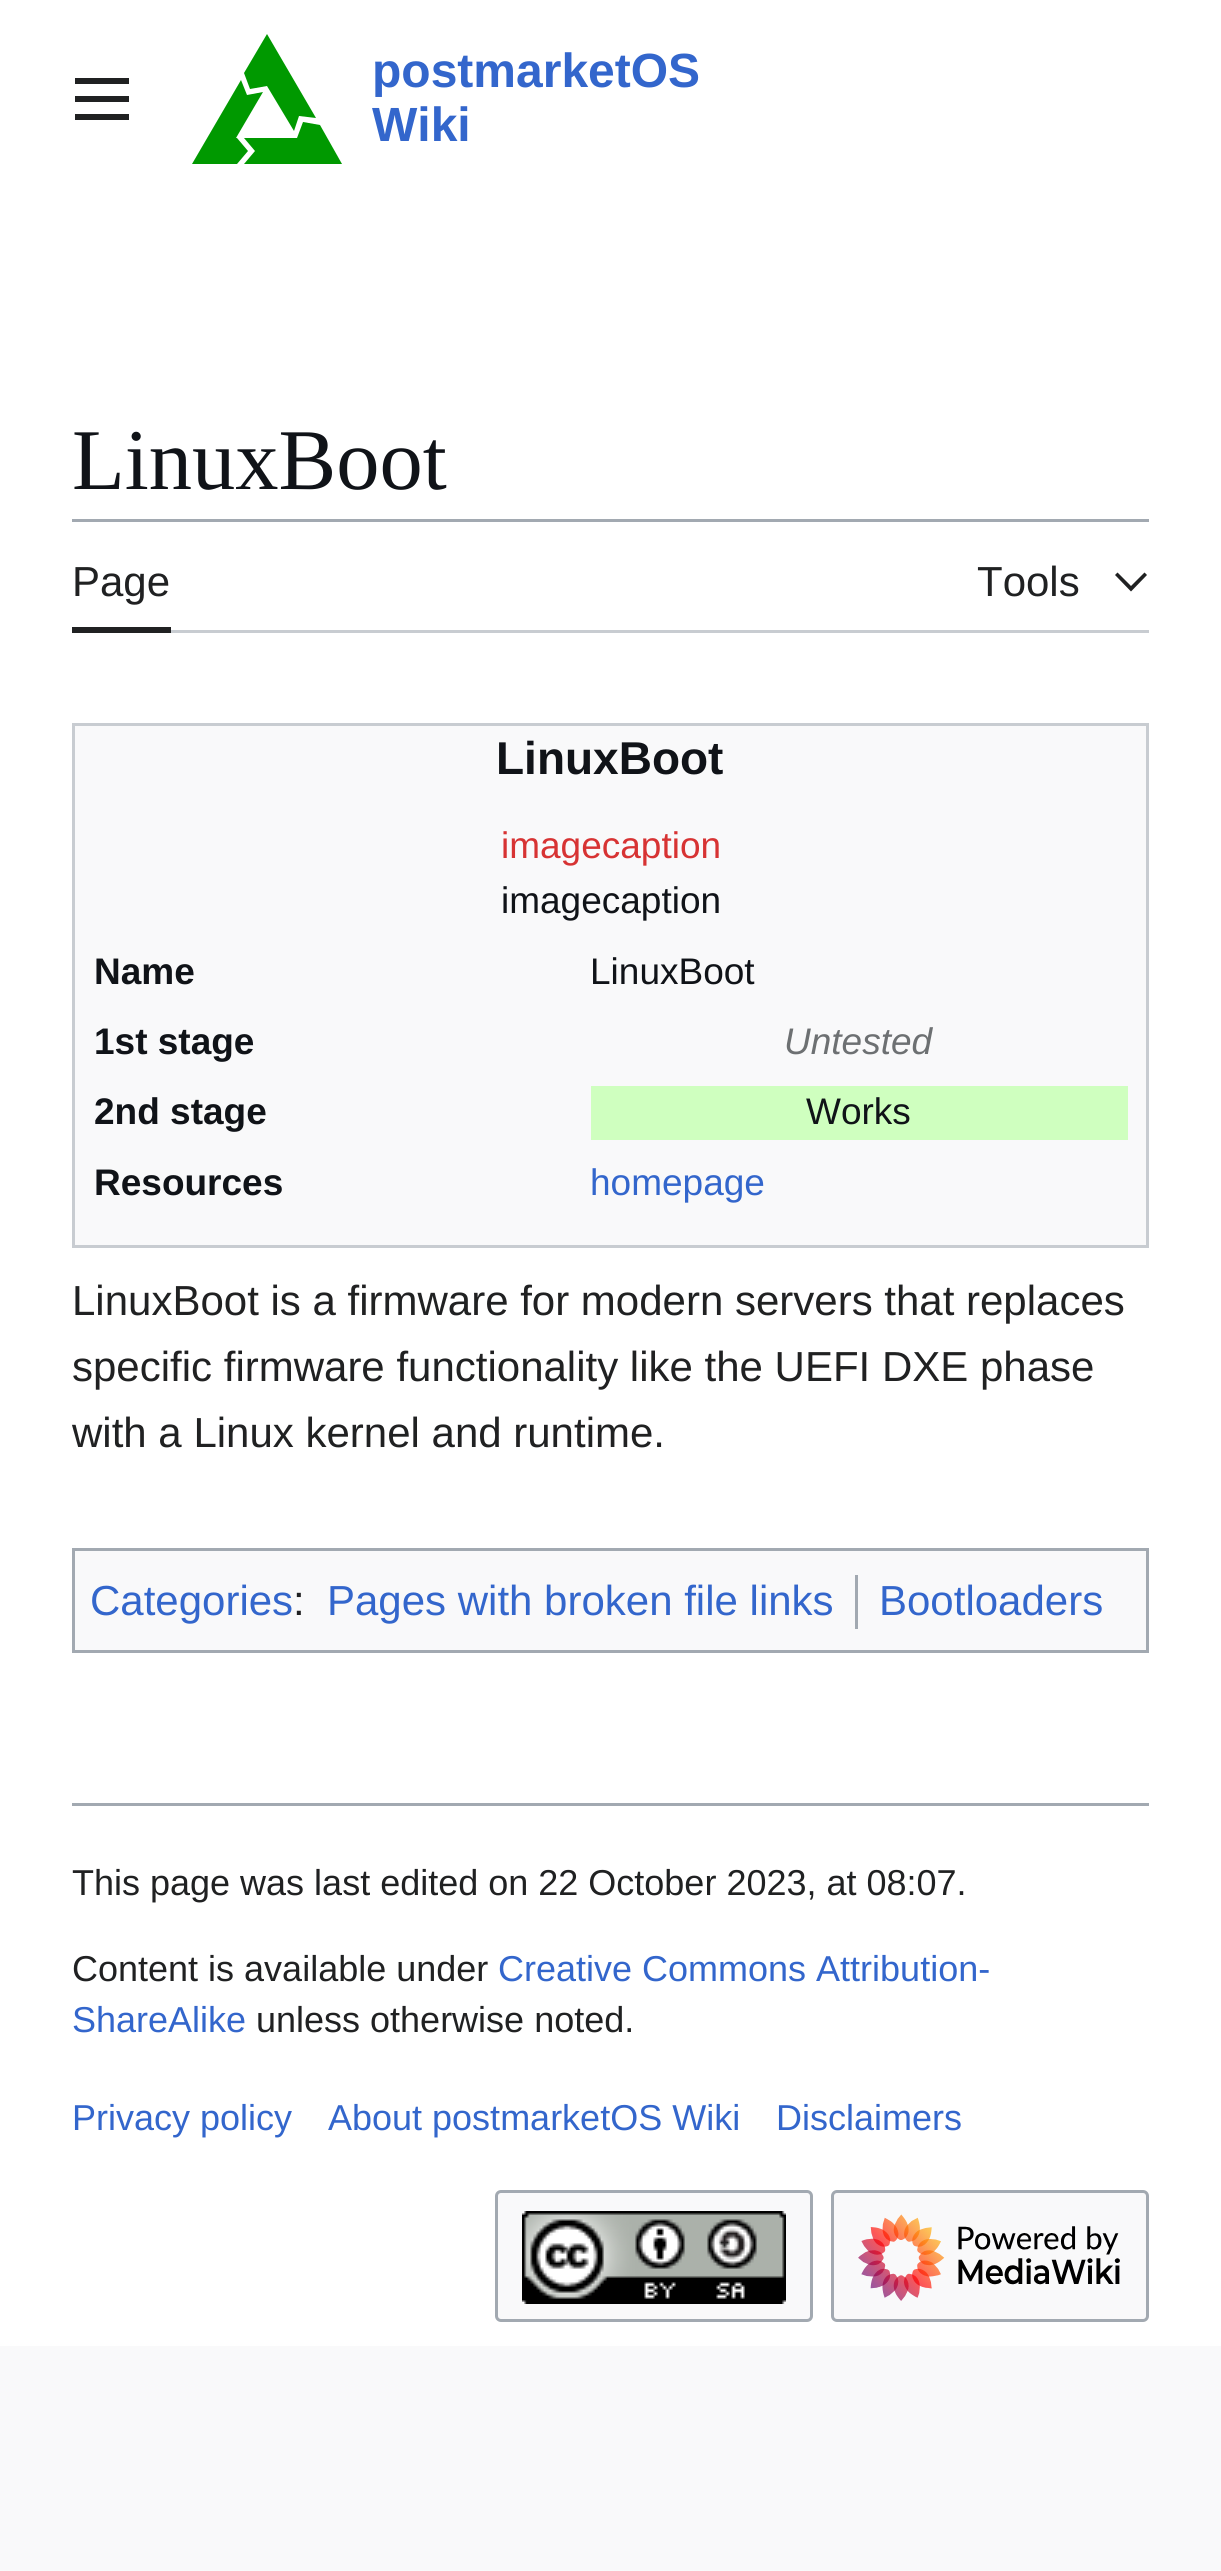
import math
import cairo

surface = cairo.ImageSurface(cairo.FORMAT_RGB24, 1221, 2571)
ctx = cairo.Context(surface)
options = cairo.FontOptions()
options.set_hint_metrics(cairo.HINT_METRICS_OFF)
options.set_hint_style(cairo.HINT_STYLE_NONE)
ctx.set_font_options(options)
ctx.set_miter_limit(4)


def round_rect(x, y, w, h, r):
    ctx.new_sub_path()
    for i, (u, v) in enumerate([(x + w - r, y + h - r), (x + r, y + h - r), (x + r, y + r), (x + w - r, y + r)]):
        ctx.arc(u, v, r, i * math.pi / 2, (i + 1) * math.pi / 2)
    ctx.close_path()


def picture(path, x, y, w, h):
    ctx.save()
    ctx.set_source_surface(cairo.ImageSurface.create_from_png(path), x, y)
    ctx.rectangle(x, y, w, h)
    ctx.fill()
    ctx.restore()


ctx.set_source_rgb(0.973, 0.976, 0.98)
ctx.paint()
ctx.set_source_rgb(1, 1, 1)
ctx.rectangle(0, 0, 1221, 2346)
ctx.fill()
picture("img1.png", 75, 78, 54, 42)
ctx.set_source_rgb(0, 0.6, 0)
ctx.new_path()
ctx.move_to(297, 138)
ctx.line_to(303, 122)
ctx.line_to(320, 125)
ctx.line_to(342, 164)
ctx.line_to(244, 164)
ctx.line_to(255, 151)
ctx.line_to(244, 138)
ctx.close_path()
ctx.fill()
ctx.new_path()
ctx.move_to(237, 138)
ctx.line_to(248, 151)
ctx.line_to(237, 164)
ctx.line_to(192, 164)
ctx.line_to(241, 80)
ctx.line_to(247, 95)
ctx.line_to(263, 92)
ctx.line_to(236, 138)
ctx.close_path()
ctx.fill()
ctx.new_path()
ctx.move_to(267, 86)
ctx.line_to(250, 89)
ctx.line_to(244, 73)
ctx.line_to(267, 34)
ctx.line_to(316, 118)
ctx.line_to(299, 116)
ctx.line_to(294, 131)
ctx.close_path()
ctx.fill()
ctx.select_font_face("Liberation Sans", cairo.FONT_SLANT_NORMAL, cairo.FONT_WEIGHT_BOLD)
ctx.set_font_size(48)
ctx.set_source_rgb(0.2, 0.4, 0.8)
ctx.move_to(372, 87)
ctx.show_text("postmarketOS")
ctx.move_to(372, 141)
ctx.show_text("Wiki")
ctx.select_font_face("Liberation Serif")
ctx.set_font_size(86.5)
ctx.set_source_rgb(0.063, 0.078, 0.094)
ctx.move_to(72, 489)
ctx.show_text("LinuxBoot")
ctx.set_source_rgb(0.635, 0.663, 0.694)
ctx.rectangle(72, 519, 1077, 3)
ctx.fill()
ctx.set_source_rgb(0.784, 0.8, 0.82)
ctx.rectangle(171, 630, 978, 3)
ctx.fill()
ctx.set_source_rgb(0.125, 0.129, 0.133)
ctx.rectangle(72, 627, 99, 6)
ctx.fill()
ctx.select_font_face("Liberation Sans")
ctx.set_font_size(42)
ctx.move_to(72, 596)
ctx.show_text("Page")
ctx.move_to(977, 596)
ctx.show_text("Tools")
ctx.new_path()
ctx.move_to(1144.5, 572.5)
ctx.line_to(1131, 586)
ctx.line_to(1117.5, 572.5)
ctx.line_to(1115, 575)
ctx.line_to(1131, 591.5)
ctx.line_to(1147, 575)
ctx.close_path()
ctx.fill()
ctx.set_source_rgb(0.973, 0.976, 0.98)
ctx.rectangle(73.5, 724.5, 1074, 522)
ctx.fill_preserve()
ctx.set_source_rgb(0.784, 0.8, 0.82)
ctx.set_line_width(3)
ctx.stroke()
ctx.select_font_face("Liberation Sans", cairo.FONT_SLANT_NORMAL, cairo.FONT_WEIGHT_BOLD)
ctx.set_font_size(46)
ctx.set_source_rgb(0.063, 0.078, 0.094)
ctx.move_to(496, 774)
ctx.show_text("LinuxBoot")
ctx.select_font_face("Liberation Sans")
ctx.set_font_size(37)
ctx.set_source_rgb(0.843, 0.2, 0.2)
ctx.move_to(501, 858)
ctx.show_text("imagecaption")
ctx.set_source_rgb(0.063, 0.078, 0.094)
ctx.move_to(501, 913)
ctx.show_text("imagecaption")
ctx.select_font_face("Liberation Sans", cairo.FONT_SLANT_NORMAL, cairo.FONT_WEIGHT_BOLD)
ctx.move_to(94, 984)
ctx.show_text("Name")
ctx.select_font_face("Liberation Sans")
ctx.move_to(590, 984)
ctx.show_text("LinuxBoot")
ctx.select_font_face("Liberation Sans", cairo.FONT_SLANT_NORMAL, cairo.FONT_WEIGHT_BOLD)
ctx.move_to(94, 1054)
ctx.show_text("1st stage")
ctx.select_font_face("Liberation Sans", cairo.FONT_SLANT_ITALIC)
ctx.set_source_rgb(0.427, 0.439, 0.447)
ctx.move_to(784, 1054)
ctx.show_text("Untested")
ctx.select_font_face("Liberation Sans", cairo.FONT_SLANT_NORMAL, cairo.FONT_WEIGHT_BOLD)
ctx.set_source_rgb(0.063, 0.078, 0.094)
ctx.move_to(94, 1124)
ctx.show_text("2nd stage")
ctx.set_source_rgb(0.812, 1, 0.749)
ctx.rectangle(591, 1086, 537, 54)
ctx.fill()
ctx.select_font_face("Liberation Sans")
ctx.set_source_rgb(0.063, 0.078, 0.094)
ctx.move_to(806, 1124)
ctx.show_text("Works")
ctx.select_font_face("Liberation Sans", cairo.FONT_SLANT_NORMAL, cairo.FONT_WEIGHT_BOLD)
ctx.move_to(94, 1195)
ctx.show_text("Resources")
ctx.select_font_face("Liberation Sans")
ctx.set_source_rgb(0.2, 0.4, 0.8)
ctx.move_to(590, 1195)
ctx.show_text("homepage")
ctx.set_font_size(42)
ctx.set_source_rgb(0.125, 0.129, 0.133)
ctx.move_to(72, 1315)
ctx.show_text("LinuxBoot is a firmware for modern servers that replaces")
ctx.move_to(72, 1381)
ctx.show_text("specific firmware functionality like the UEFI DXE phase")
ctx.move_to(72, 1447)
ctx.show_text("with a Linux kernel and runtime.")
ctx.set_source_rgb(0.973, 0.976, 0.98)
ctx.rectangle(73.5, 1549.5, 1074, 102)
ctx.fill_preserve()
ctx.set_source_rgb(0.635, 0.663, 0.694)
ctx.stroke()
ctx.set_source_rgb(0.2, 0.4, 0.8)
ctx.move_to(90, 1615)
ctx.show_text("Categories")
ctx.set_source_rgb(0.125, 0.129, 0.133)
ctx.move_to(293, 1615)
ctx.show_text(":")
ctx.set_source_rgb(0.2, 0.4, 0.8)
ctx.move_to(327, 1615)
ctx.show_text("Pages with broken file links")
ctx.set_source_rgb(0.635, 0.663, 0.694)
ctx.rectangle(855, 1575, 3, 54)
ctx.fill()
ctx.set_source_rgb(0.2, 0.4, 0.8)
ctx.move_to(879, 1615)
ctx.show_text("Bootloaders")
ctx.set_source_rgb(0.635, 0.663, 0.694)
ctx.rectangle(72, 1803, 1077, 3)
ctx.fill()
ctx.set_font_size(36)
ctx.set_source_rgb(0.125, 0.129, 0.133)
ctx.move_to(72, 1895)
ctx.show_text("This page was last edited on 22 October 2023, at 08:07.")
ctx.move_to(72, 1981)
ctx.show_text("Content is available under")
ctx.set_source_rgb(0.2, 0.4, 0.8)
ctx.move_to(498, 1981)
ctx.show_text("Creative Commons Attribution-")
ctx.move_to(72, 2032)
ctx.show_text("ShareAlike")
ctx.set_source_rgb(0.125, 0.129, 0.133)
ctx.move_to(256, 2032)
ctx.show_text("unless otherwise noted.")
ctx.set_source_rgb(0.2, 0.4, 0.8)
ctx.move_to(72, 2130)
ctx.show_text("Privacy policy")
ctx.move_to(328, 2130)
ctx.show_text("About postmarketOS Wiki")
ctx.move_to(776, 2130)
ctx.show_text("Disclaimers")
ctx.set_source_rgb(0.973, 0.976, 0.98)
round_rect(496.5, 2191.5, 315, 129, 4.5)
ctx.fill_preserve()
ctx.set_source_rgb(0.635, 0.663, 0.694)
ctx.stroke()
picture("img2.png", 522, 2211, 264, 93)
ctx.set_source_rgb(0.973, 0.976, 0.98)
round_rect(832.5, 2191.5, 315, 129, 4.5)
ctx.fill_preserve()
ctx.set_source_rgb(0.635, 0.663, 0.694)
ctx.stroke()
picture("img3.png", 858, 2214, 262, 87)
surface.write_to_png("page.png")
